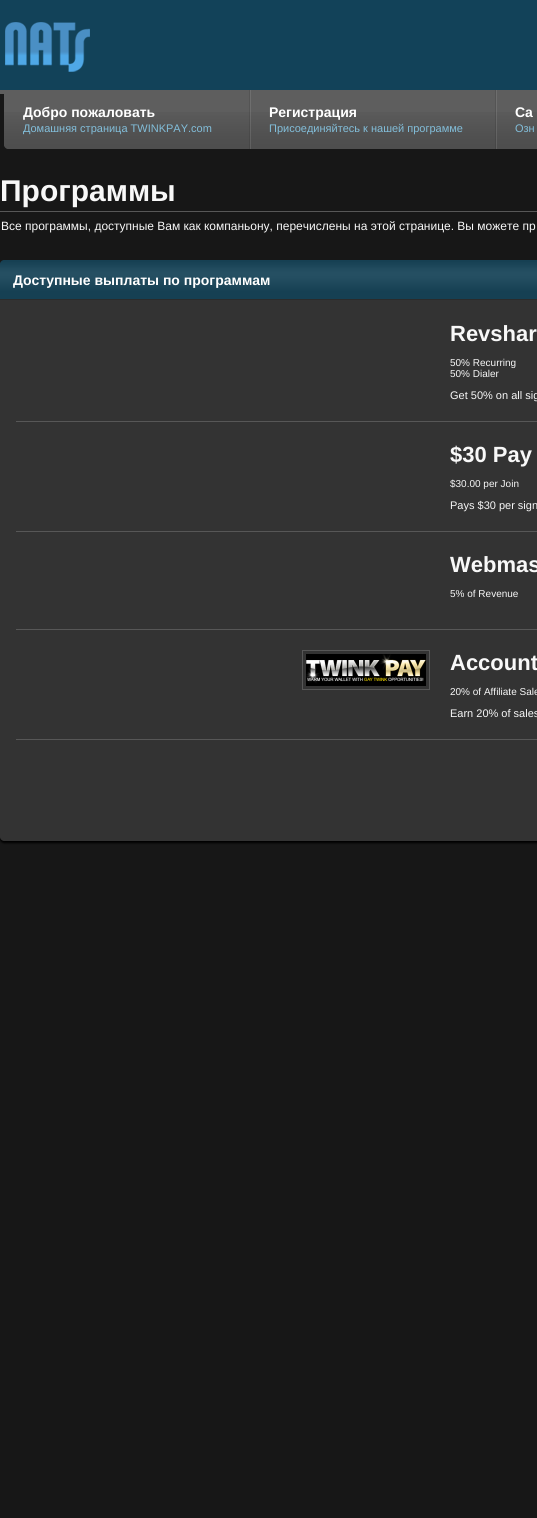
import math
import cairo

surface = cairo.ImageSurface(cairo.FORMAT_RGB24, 537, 1518)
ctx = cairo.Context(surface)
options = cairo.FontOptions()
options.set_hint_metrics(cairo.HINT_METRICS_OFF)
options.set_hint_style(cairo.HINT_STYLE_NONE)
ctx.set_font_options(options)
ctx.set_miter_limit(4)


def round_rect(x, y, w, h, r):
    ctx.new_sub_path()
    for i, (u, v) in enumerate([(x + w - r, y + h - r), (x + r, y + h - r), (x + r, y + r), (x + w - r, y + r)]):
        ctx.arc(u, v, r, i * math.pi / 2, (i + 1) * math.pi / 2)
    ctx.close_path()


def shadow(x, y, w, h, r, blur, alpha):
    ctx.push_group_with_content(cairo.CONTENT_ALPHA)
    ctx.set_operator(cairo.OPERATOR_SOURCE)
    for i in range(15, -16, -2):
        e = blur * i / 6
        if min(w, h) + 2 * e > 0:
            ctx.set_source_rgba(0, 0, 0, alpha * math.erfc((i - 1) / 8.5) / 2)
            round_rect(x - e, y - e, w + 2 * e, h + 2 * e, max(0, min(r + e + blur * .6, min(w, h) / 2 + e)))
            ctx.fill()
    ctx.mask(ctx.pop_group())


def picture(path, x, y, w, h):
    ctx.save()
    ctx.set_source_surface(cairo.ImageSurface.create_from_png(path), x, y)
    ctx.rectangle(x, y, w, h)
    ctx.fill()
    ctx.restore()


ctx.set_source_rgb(0.09, 0.09, 0.09)
ctx.paint()
ctx.set_source_rgb(0.369, 0.369, 0.369)
ctx.rectangle(0, 90, 4, 4)
ctx.fill()
ctx.set_source_rgb(0.071, 0.259, 0.349)
ctx.rectangle(0, 0, 537, 90)
ctx.fill()
picture("img1.png", 5, 22, 85, 50)
ctx.set_source_rgb(0.369, 0.369, 0.369)
ctx.new_path()
ctx.move_to(4, 90)
ctx.line_to(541, 90)
ctx.line_to(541, 145)
ctx.curve_to(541, 147, 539, 149, 537, 149)
ctx.line_to(8, 149)
ctx.curve_to(6, 149, 4, 147, 4, 145)
ctx.close_path()
ctx.fill()
picture("img2.png", 4, 112, 533, 37)
ctx.select_font_face("Liberation Sans", cairo.FONT_SLANT_NORMAL, cairo.FONT_WEIGHT_BOLD)
ctx.set_font_size(14)
ctx.set_source_rgb(1, 1, 1)
ctx.move_to(23, 117)
ctx.show_text("Добро пожаловать")
ctx.select_font_face("Liberation Sans")
ctx.set_font_size(11)
ctx.set_source_rgb(0.51, 0.745, 0.855)
ctx.move_to(23, 132)
ctx.show_text("Домашняя страница TWINKPAY.com")
picture("img3.png", 249, 90, 2, 59)
ctx.select_font_face("Liberation Sans", cairo.FONT_SLANT_NORMAL, cairo.FONT_WEIGHT_BOLD)
ctx.set_font_size(14)
ctx.set_source_rgb(1, 1, 1)
ctx.move_to(269, 117)
ctx.show_text("Регистрация")
ctx.select_font_face("Liberation Sans")
ctx.set_font_size(11)
ctx.set_source_rgb(0.51, 0.745, 0.855)
ctx.move_to(269, 132)
ctx.show_text("Присоединяйтесь к нашей программе")
picture("img3.png", 495, 90, 2, 59)
ctx.select_font_face("Liberation Sans", cairo.FONT_SLANT_NORMAL, cairo.FONT_WEIGHT_BOLD)
ctx.set_font_size(14)
ctx.set_source_rgb(1, 1, 1)
ctx.move_to(515, 117)
ctx.show_text("Са")
ctx.select_font_face("Liberation Sans")
ctx.set_font_size(11)
ctx.set_source_rgb(0.51, 0.745, 0.855)
ctx.move_to(515, 132)
ctx.show_text("Озн")
ctx.set_source_rgb(0.341, 0.341, 0.341)
ctx.rectangle(0, 211, 537, 1)
ctx.fill()
ctx.select_font_face("Liberation Sans", cairo.FONT_SLANT_NORMAL, cairo.FONT_WEIGHT_BOLD)
ctx.set_font_size(30)
ctx.set_source_rgb(0.969, 0.969, 0.969)
ctx.move_to(0, 201)
ctx.show_text("Программы")
ctx.select_font_face("Liberation Sans")
ctx.set_font_size(12)
ctx.move_to(1, 230)
ctx.show_text("Все программы, доступные Вам как компаньону, перечислены на этой странице. Вы можете пр")
ctx.set_source_rgb(0, 0, 0)
shadow(0, 301, 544, 542, 4, 1, 1)
ctx.set_source_rgb(0.071, 0.259, 0.349)
ctx.new_path()
ctx.move_to(4, 260)
ctx.line_to(537, 260)
ctx.curve_to(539, 260, 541, 262, 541, 264)
ctx.line_to(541, 299)
ctx.line_to(0, 299)
ctx.line_to(0, 264)
ctx.curve_to(0, 262, 2, 260, 4, 260)
ctx.close_path()
ctx.fill()
picture("img4.png", 0, 260, 537, 39)
ctx.select_font_face("Liberation Sans", cairo.FONT_SLANT_NORMAL, cairo.FONT_WEIGHT_BOLD)
ctx.set_font_size(14)
ctx.set_source_rgb(1, 1, 1)
ctx.move_to(13, 285)
ctx.show_text("Доступные выплаты по программам")
ctx.set_source_rgb(0.2, 0.2, 0.2)
ctx.new_path()
ctx.move_to(0, 299)
ctx.line_to(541, 299)
ctx.line_to(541, 837)
ctx.curve_to(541, 839, 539, 841, 537, 841)
ctx.line_to(4, 841)
ctx.curve_to(2, 841, 0, 839, 0, 837)
ctx.close_path()
ctx.fill()
ctx.set_source_rgb(0.169, 0.169, 0.169)
ctx.rectangle(0, 299, 537, 1)
ctx.fill()
ctx.set_font_size(22)
ctx.set_source_rgb(0.969, 0.969, 0.969)
ctx.move_to(450, 341)
ctx.show_text("Revshar")
ctx.select_font_face("Liberation Sans")
ctx.set_font_size(10)
ctx.move_to(450, 366)
ctx.show_text("50% Recurring")
ctx.move_to(450, 377)
ctx.show_text("50% Dialer")
ctx.set_font_size(11)
ctx.move_to(450, 399)
ctx.show_text("Get 50% on all sig")
ctx.set_source_rgb(0.341, 0.341, 0.341)
ctx.rectangle(16, 421, 521, 1)
ctx.fill()
ctx.select_font_face("Liberation Sans", cairo.FONT_SLANT_NORMAL, cairo.FONT_WEIGHT_BOLD)
ctx.set_font_size(22)
ctx.set_source_rgb(0.969, 0.969, 0.969)
ctx.move_to(450, 462)
ctx.show_text("$30 Pay")
ctx.select_font_face("Liberation Sans")
ctx.set_font_size(10)
ctx.move_to(450, 487)
ctx.show_text("$30.00 per Join")
ctx.set_font_size(11)
ctx.move_to(450, 509)
ctx.show_text("Pays $30 per sign")
ctx.set_source_rgb(0.341, 0.341, 0.341)
ctx.rectangle(16, 531, 521, 1)
ctx.fill()
ctx.select_font_face("Liberation Sans", cairo.FONT_SLANT_NORMAL, cairo.FONT_WEIGHT_BOLD)
ctx.set_font_size(22)
ctx.set_source_rgb(0.969, 0.969, 0.969)
ctx.move_to(450, 572)
ctx.show_text("Webmas")
ctx.select_font_face("Liberation Sans")
ctx.set_font_size(10)
ctx.move_to(450, 597)
ctx.show_text("5% of Revenue")
ctx.set_source_rgb(0.341, 0.341, 0.341)
ctx.rectangle(16, 629, 521, 1)
ctx.fill()
ctx.rectangle(16, 739, 521, 1)
ctx.fill()
ctx.rectangle(302.5, 650.5, 127, 39)
ctx.set_line_width(1)
ctx.stroke()
picture("img5.png", 306, 654, 120, 32)
ctx.select_font_face("Liberation Sans", cairo.FONT_SLANT_NORMAL, cairo.FONT_WEIGHT_BOLD)
ctx.set_font_size(22)
ctx.set_source_rgb(0.969, 0.969, 0.969)
ctx.move_to(450, 670)
ctx.show_text("Account")
ctx.select_font_face("Liberation Sans")
ctx.set_font_size(10)
ctx.move_to(450, 695)
ctx.show_text("20% of Affiliate Sale")
ctx.set_font_size(11)
ctx.move_to(450, 717)
ctx.show_text("Earn 20% of sales")
surface.write_to_png("page.png")
